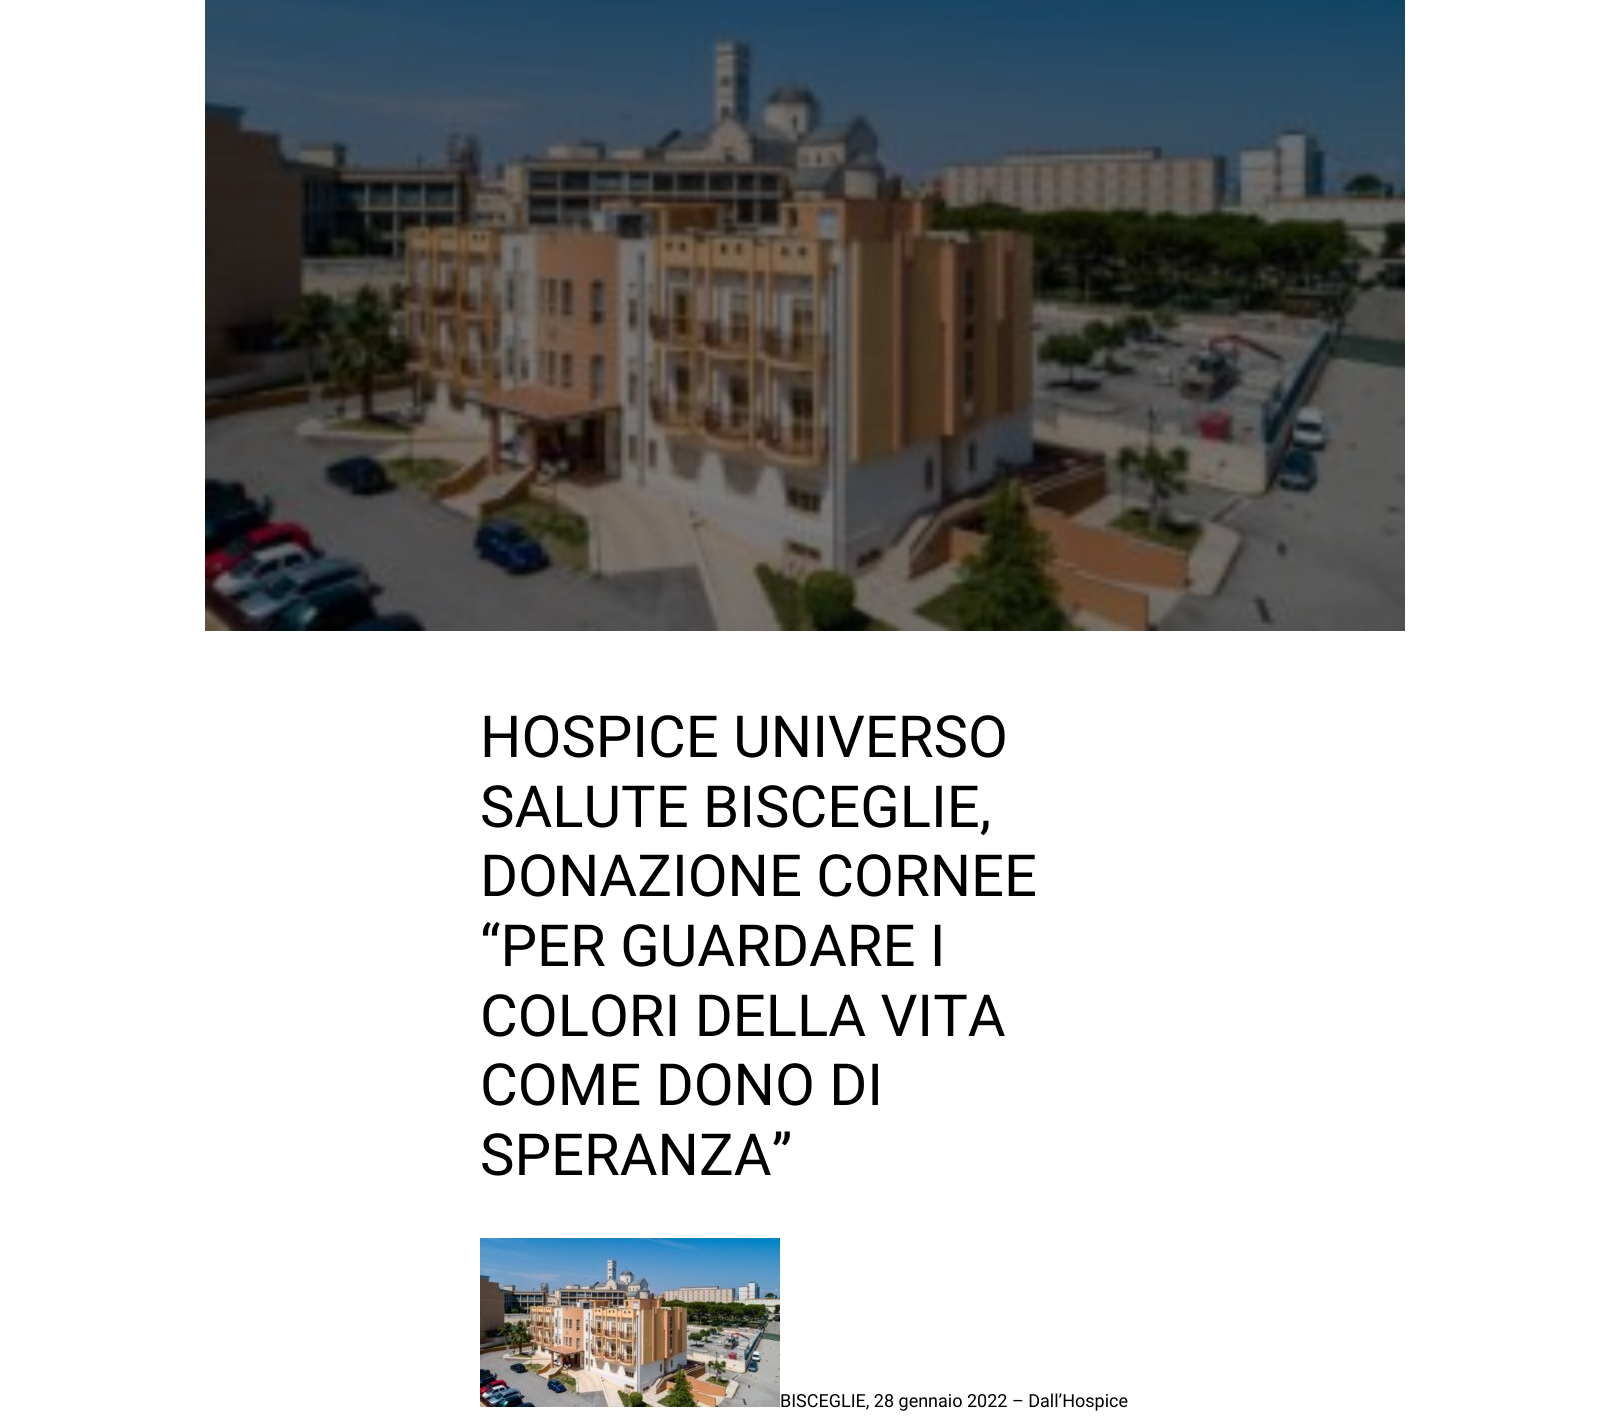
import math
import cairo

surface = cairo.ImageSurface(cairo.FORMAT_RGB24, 1609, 1427)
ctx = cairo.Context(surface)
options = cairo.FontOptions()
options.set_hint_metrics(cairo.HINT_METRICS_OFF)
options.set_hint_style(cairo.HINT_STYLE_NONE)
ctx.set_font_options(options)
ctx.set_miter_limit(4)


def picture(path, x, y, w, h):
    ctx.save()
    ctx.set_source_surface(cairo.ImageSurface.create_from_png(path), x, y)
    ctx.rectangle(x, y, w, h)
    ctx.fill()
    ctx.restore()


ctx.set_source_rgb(1, 1, 1)
ctx.paint()
picture("img1.png", 205, 0, 1200, 631)
ctx.select_font_face("Roboto")
ctx.set_font_size(58)
ctx.set_source_rgb(0, 0, 0)
ctx.move_to(480, 757)
ctx.show_text("HOSPICE UNIVERSO")
ctx.move_to(480, 827)
ctx.show_text("SALUTE BISCEGLIE,")
ctx.move_to(480, 896)
ctx.show_text("DONAZIONE CORNEE")
ctx.move_to(480, 966)
ctx.show_text("“PER GUARDARE I")
ctx.move_to(480, 1036)
ctx.show_text("COLORI DELLA VITA")
ctx.move_to(480, 1105)
ctx.show_text("COME DONO DI")
ctx.move_to(480, 1175)
ctx.show_text("SPERANZA”")
picture("img2.png", 480, 1238, 300, 169)
ctx.set_font_size(18)
ctx.move_to(780, 1407)
ctx.show_text("BISCEGLIE, 28 gennaio 2022 – Dall’Hospice")
surface.write_to_png("page.png")
